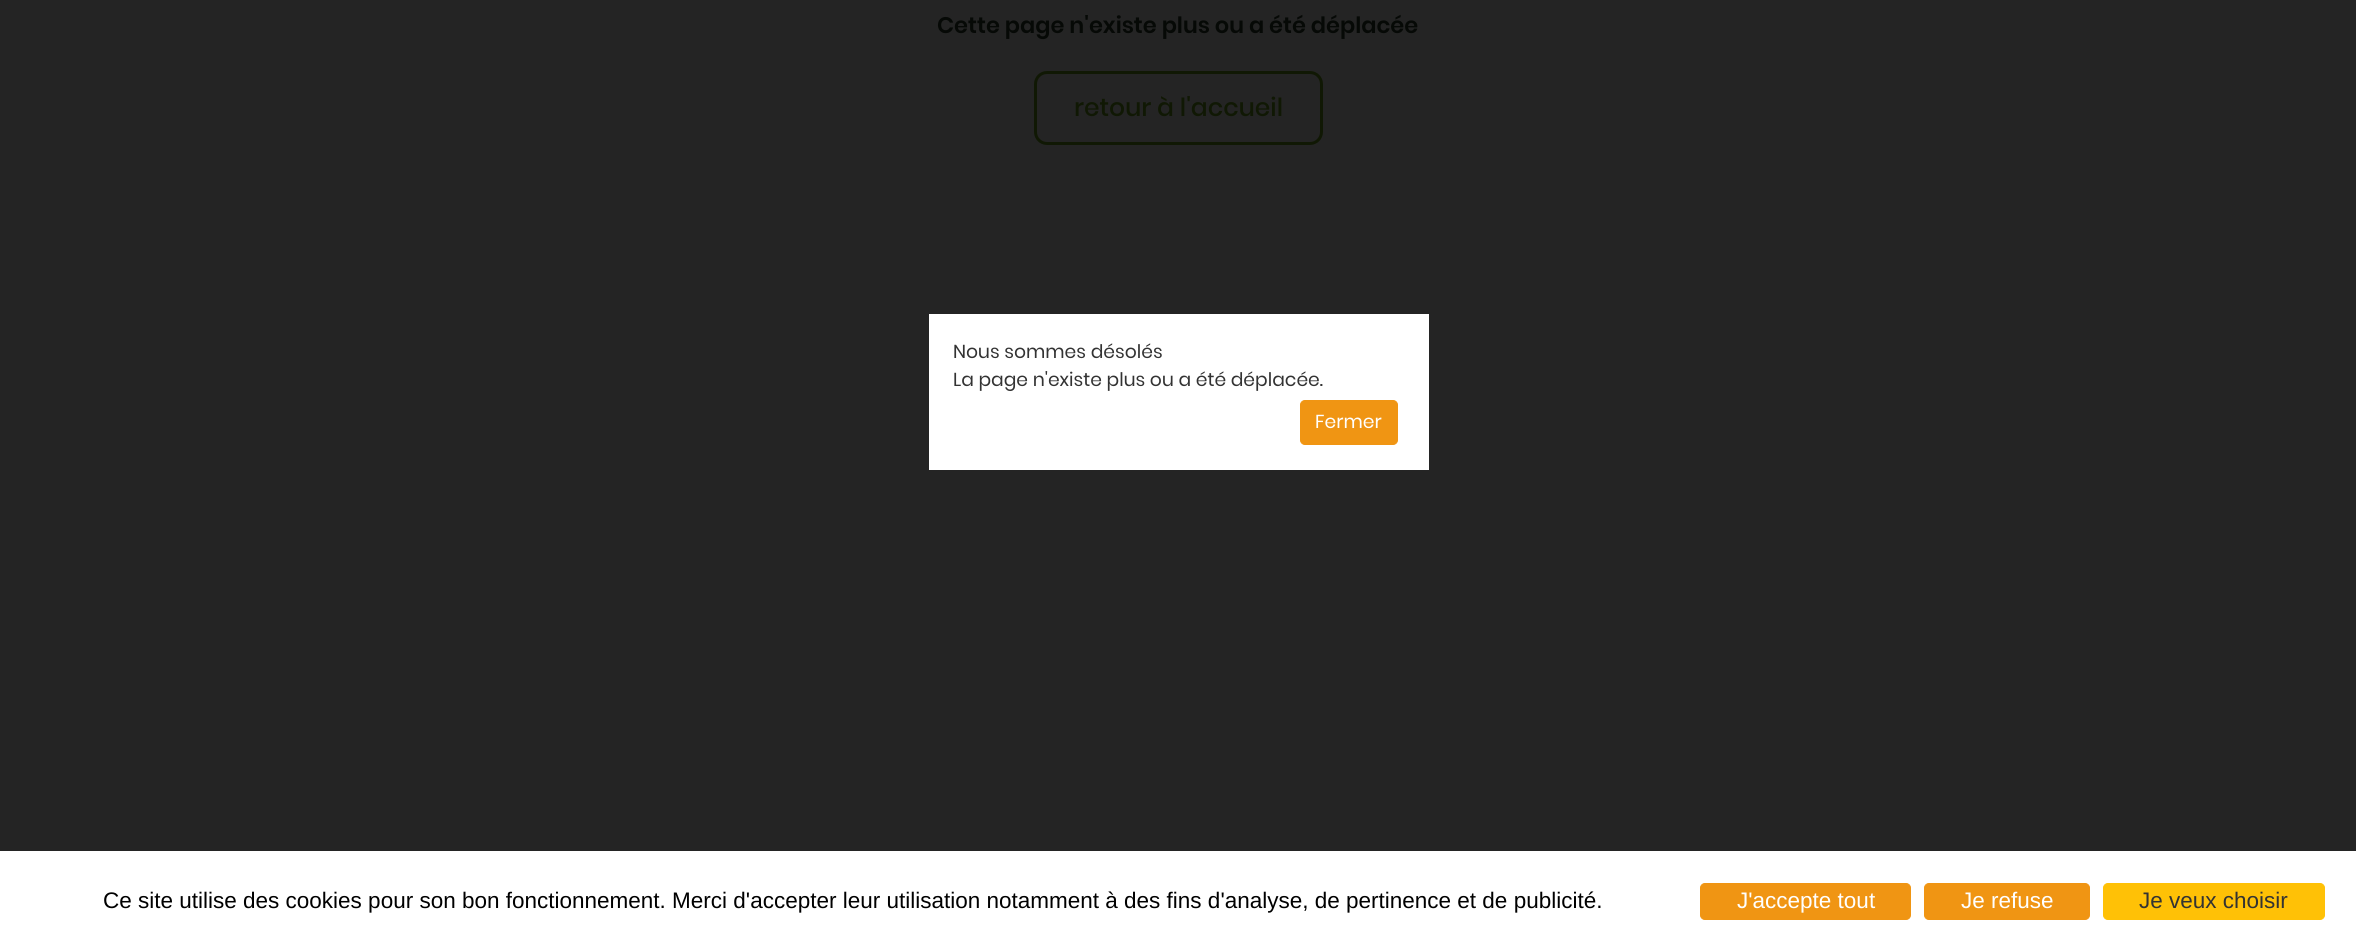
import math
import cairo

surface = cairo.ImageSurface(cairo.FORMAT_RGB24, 2356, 951)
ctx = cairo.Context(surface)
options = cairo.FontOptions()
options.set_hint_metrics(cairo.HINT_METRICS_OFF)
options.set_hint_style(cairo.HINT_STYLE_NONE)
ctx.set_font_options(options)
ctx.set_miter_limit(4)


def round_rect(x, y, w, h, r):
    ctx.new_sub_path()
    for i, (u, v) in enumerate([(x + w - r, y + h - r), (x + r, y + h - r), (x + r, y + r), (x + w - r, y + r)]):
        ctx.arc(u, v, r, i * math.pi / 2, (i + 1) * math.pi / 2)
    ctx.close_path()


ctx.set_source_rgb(0.141, 0.141, 0.141)
ctx.paint()
ctx.select_font_face("Poppins SemiBold")
ctx.set_font_size(22.5)
ctx.set_source_rgb(0.027, 0.039, 0.024)
ctx.move_to(937, 33)
ctx.show_text("Cette page n'existe plus ou a été déplacée")
round_rect(1035.5, 72.5, 286, 71, 11.5)
ctx.set_source_rgb(0.063, 0.094, 0.016)
ctx.set_line_width(3)
ctx.stroke()
ctx.select_font_face("Poppins Medium")
ctx.set_font_size(25)
ctx.move_to(1074, 116)
ctx.show_text("retour à l'accueil")
ctx.set_source_rgb(1, 1, 1)
ctx.rectangle(929, 314, 500, 156)
ctx.fill()
ctx.select_font_face("Poppins")
ctx.set_font_size(18.75)
ctx.set_source_rgb(0.2, 0.2, 0.2)
ctx.move_to(953, 358)
ctx.show_text("Nous sommes désolés")
ctx.move_to(953, 386)
ctx.show_text("La page n'existe plus ou a été déplacée.")
ctx.set_source_rgb(0.941, 0.584, 0.075)
round_rect(1300.5, 400.5, 97, 44, 4.5)
ctx.fill_preserve()
ctx.set_line_width(1)
ctx.stroke()
ctx.set_source_rgb(1, 1, 1)
ctx.move_to(1315, 428)
ctx.show_text("Fermer")
ctx.rectangle(0, 851, 2356, 100)
ctx.fill()
ctx.select_font_face("Liberation Sans")
ctx.set_font_size(22.5)
ctx.set_source_rgb(0, 0, 0)
ctx.move_to(103, 908)
ctx.show_text("Ce site utilise des cookies pour son bon fonctionnement. Merci d'accepter leur utilisation notamment à des fins d'analyse, de pertinence et de publicité.")
ctx.set_source_rgb(0.941, 0.584, 0.075)
round_rect(1700.5, 883.5, 210, 36, 4.5)
ctx.fill_preserve()
ctx.stroke()
ctx.set_source_rgb(1, 1, 1)
ctx.move_to(1737, 908)
ctx.show_text("J'accepte tout")
ctx.set_source_rgb(0.941, 0.584, 0.075)
round_rect(1924.5, 883.5, 165, 36, 4.5)
ctx.fill_preserve()
ctx.stroke()
ctx.set_source_rgb(1, 1, 1)
ctx.move_to(1961, 908)
ctx.show_text("Je refuse")
ctx.set_source_rgb(1, 0.757, 0.027)
round_rect(2103.5, 883.5, 221, 36, 4.5)
ctx.fill_preserve()
ctx.stroke()
ctx.set_source_rgb(0.2, 0.2, 0.2)
ctx.move_to(2139, 908)
ctx.show_text("Je veux choisir")
surface.write_to_png("page.png")
